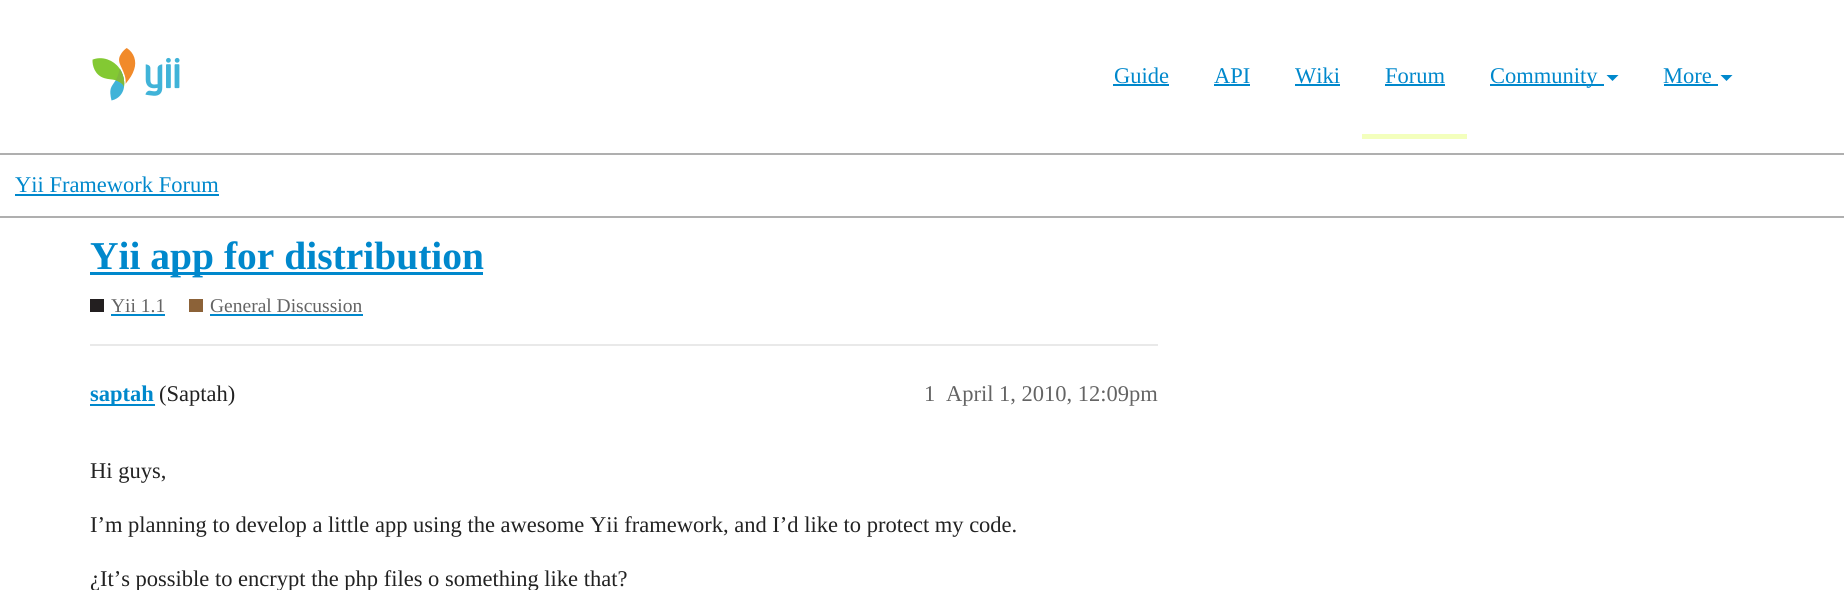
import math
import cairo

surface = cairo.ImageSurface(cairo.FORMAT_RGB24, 1844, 590)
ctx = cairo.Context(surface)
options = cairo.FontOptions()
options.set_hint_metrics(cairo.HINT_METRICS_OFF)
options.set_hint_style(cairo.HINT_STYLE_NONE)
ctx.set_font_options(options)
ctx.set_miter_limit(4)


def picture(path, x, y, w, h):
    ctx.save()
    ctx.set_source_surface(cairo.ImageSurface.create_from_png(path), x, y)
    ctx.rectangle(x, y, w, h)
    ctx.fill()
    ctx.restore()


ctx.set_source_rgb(1, 1, 1)
ctx.paint()
ctx.set_source_rgb(0.686, 0.686, 0.686)
ctx.rectangle(0, 153, 1844, 2)
ctx.fill()
picture("img1.png", 92, 48, 88, 53)
ctx.select_font_face("Liberation Serif")
ctx.set_font_size(22.5)
ctx.set_source_rgb(0, 0.533, 0.8)
ctx.move_to(1114, 83)
ctx.show_text("Guide")
ctx.rectangle(1113, 84, 56, 2)
ctx.fill()
ctx.move_to(1214, 83)
ctx.show_text("API")
ctx.rectangle(1214, 84, 36, 2)
ctx.fill()
ctx.move_to(1295, 83)
ctx.show_text("Wiki")
ctx.rectangle(1295, 84, 45, 2)
ctx.fill()
ctx.set_source_rgb(0.953, 1, 0.741)
ctx.rectangle(1362, 134, 105, 5)
ctx.fill()
ctx.set_source_rgb(0, 0.533, 0.8)
ctx.move_to(1385, 83)
ctx.show_text("Forum")
ctx.rectangle(1385, 84, 60, 2)
ctx.fill()
ctx.rectangle(1490, 84, 114, 2)
ctx.fill()
ctx.move_to(1490, 83)
ctx.show_text("Community")
ctx.new_path()
ctx.move_to(1606.5, 75)
ctx.line_to(1618.5, 75)
ctx.line_to(1612.5, 81)
ctx.close_path()
ctx.fill()
ctx.move_to(1663, 83)
ctx.show_text("More")
ctx.rectangle(1664, 84, 54, 2)
ctx.fill()
ctx.new_path()
ctx.move_to(1720.5, 75)
ctx.line_to(1732.5, 75)
ctx.line_to(1726.5, 81)
ctx.close_path()
ctx.fill()
ctx.set_source_rgb(0.686, 0.686, 0.686)
ctx.rectangle(0, 216, 1844, 2)
ctx.fill()
ctx.set_source_rgb(0, 0.533, 0.8)
ctx.move_to(15, 192)
ctx.show_text("Yii Framework Forum")
ctx.rectangle(15, 194, 204, 2)
ctx.fill()
ctx.rectangle(90, 272, 393, 3)
ctx.fill()
ctx.select_font_face("Liberation Serif", cairo.FONT_SLANT_NORMAL, cairo.FONT_WEIGHT_BOLD)
ctx.set_font_size(39.5)
ctx.move_to(90, 269)
ctx.show_text("Yii app for distribution")
ctx.set_source_rgb(0.137, 0.122, 0.125)
ctx.rectangle(90, 299, 14, 13)
ctx.fill()
ctx.select_font_face("Liberation Serif")
ctx.set_font_size(19.5)
ctx.set_source_rgb(0.392, 0.392, 0.392)
ctx.move_to(111, 312)
ctx.show_text("Yii 1.1")
ctx.set_source_rgb(0, 0.533, 0.8)
ctx.rectangle(111, 314, 54, 2)
ctx.fill()
ctx.set_source_rgb(0.549, 0.384, 0.22)
ctx.rectangle(189, 299, 14, 13)
ctx.fill()
ctx.set_source_rgb(0.392, 0.392, 0.392)
ctx.move_to(210, 312)
ctx.show_text("General Discussion")
ctx.set_source_rgb(0, 0.533, 0.8)
ctx.rectangle(210, 314, 153, 2)
ctx.fill()
ctx.set_source_rgb(0.914, 0.914, 0.914)
ctx.rectangle(90, 344, 1068, 2)
ctx.fill()
ctx.set_source_rgb(0, 0.533, 0.8)
ctx.rectangle(90, 404, 65, 2)
ctx.fill()
ctx.select_font_face("Liberation Serif", cairo.FONT_SLANT_NORMAL, cairo.FONT_WEIGHT_BOLD)
ctx.set_font_size(22.5)
ctx.move_to(90, 401)
ctx.show_text("saptah")
ctx.select_font_face("Liberation Serif")
ctx.set_source_rgb(0.133, 0.133, 0.133)
ctx.move_to(159, 401)
ctx.show_text("(Saptah)")
ctx.set_source_rgb(0.392, 0.392, 0.392)
ctx.move_to(924, 401)
ctx.show_text("1")
ctx.move_to(946, 401)
ctx.show_text("April 1, 2010, 12:09pm")
ctx.set_source_rgb(0.133, 0.133, 0.133)
ctx.move_to(90, 478)
ctx.show_text("Hi guys,")
ctx.move_to(90, 532)
ctx.show_text("I’m planning to develop a little app using the awesome Yii framework, and I’d like to protect my code.")
ctx.move_to(90, 586)
ctx.show_text("¿It’s possible to encrypt the php files o something like that?")
surface.write_to_png("page.png")
